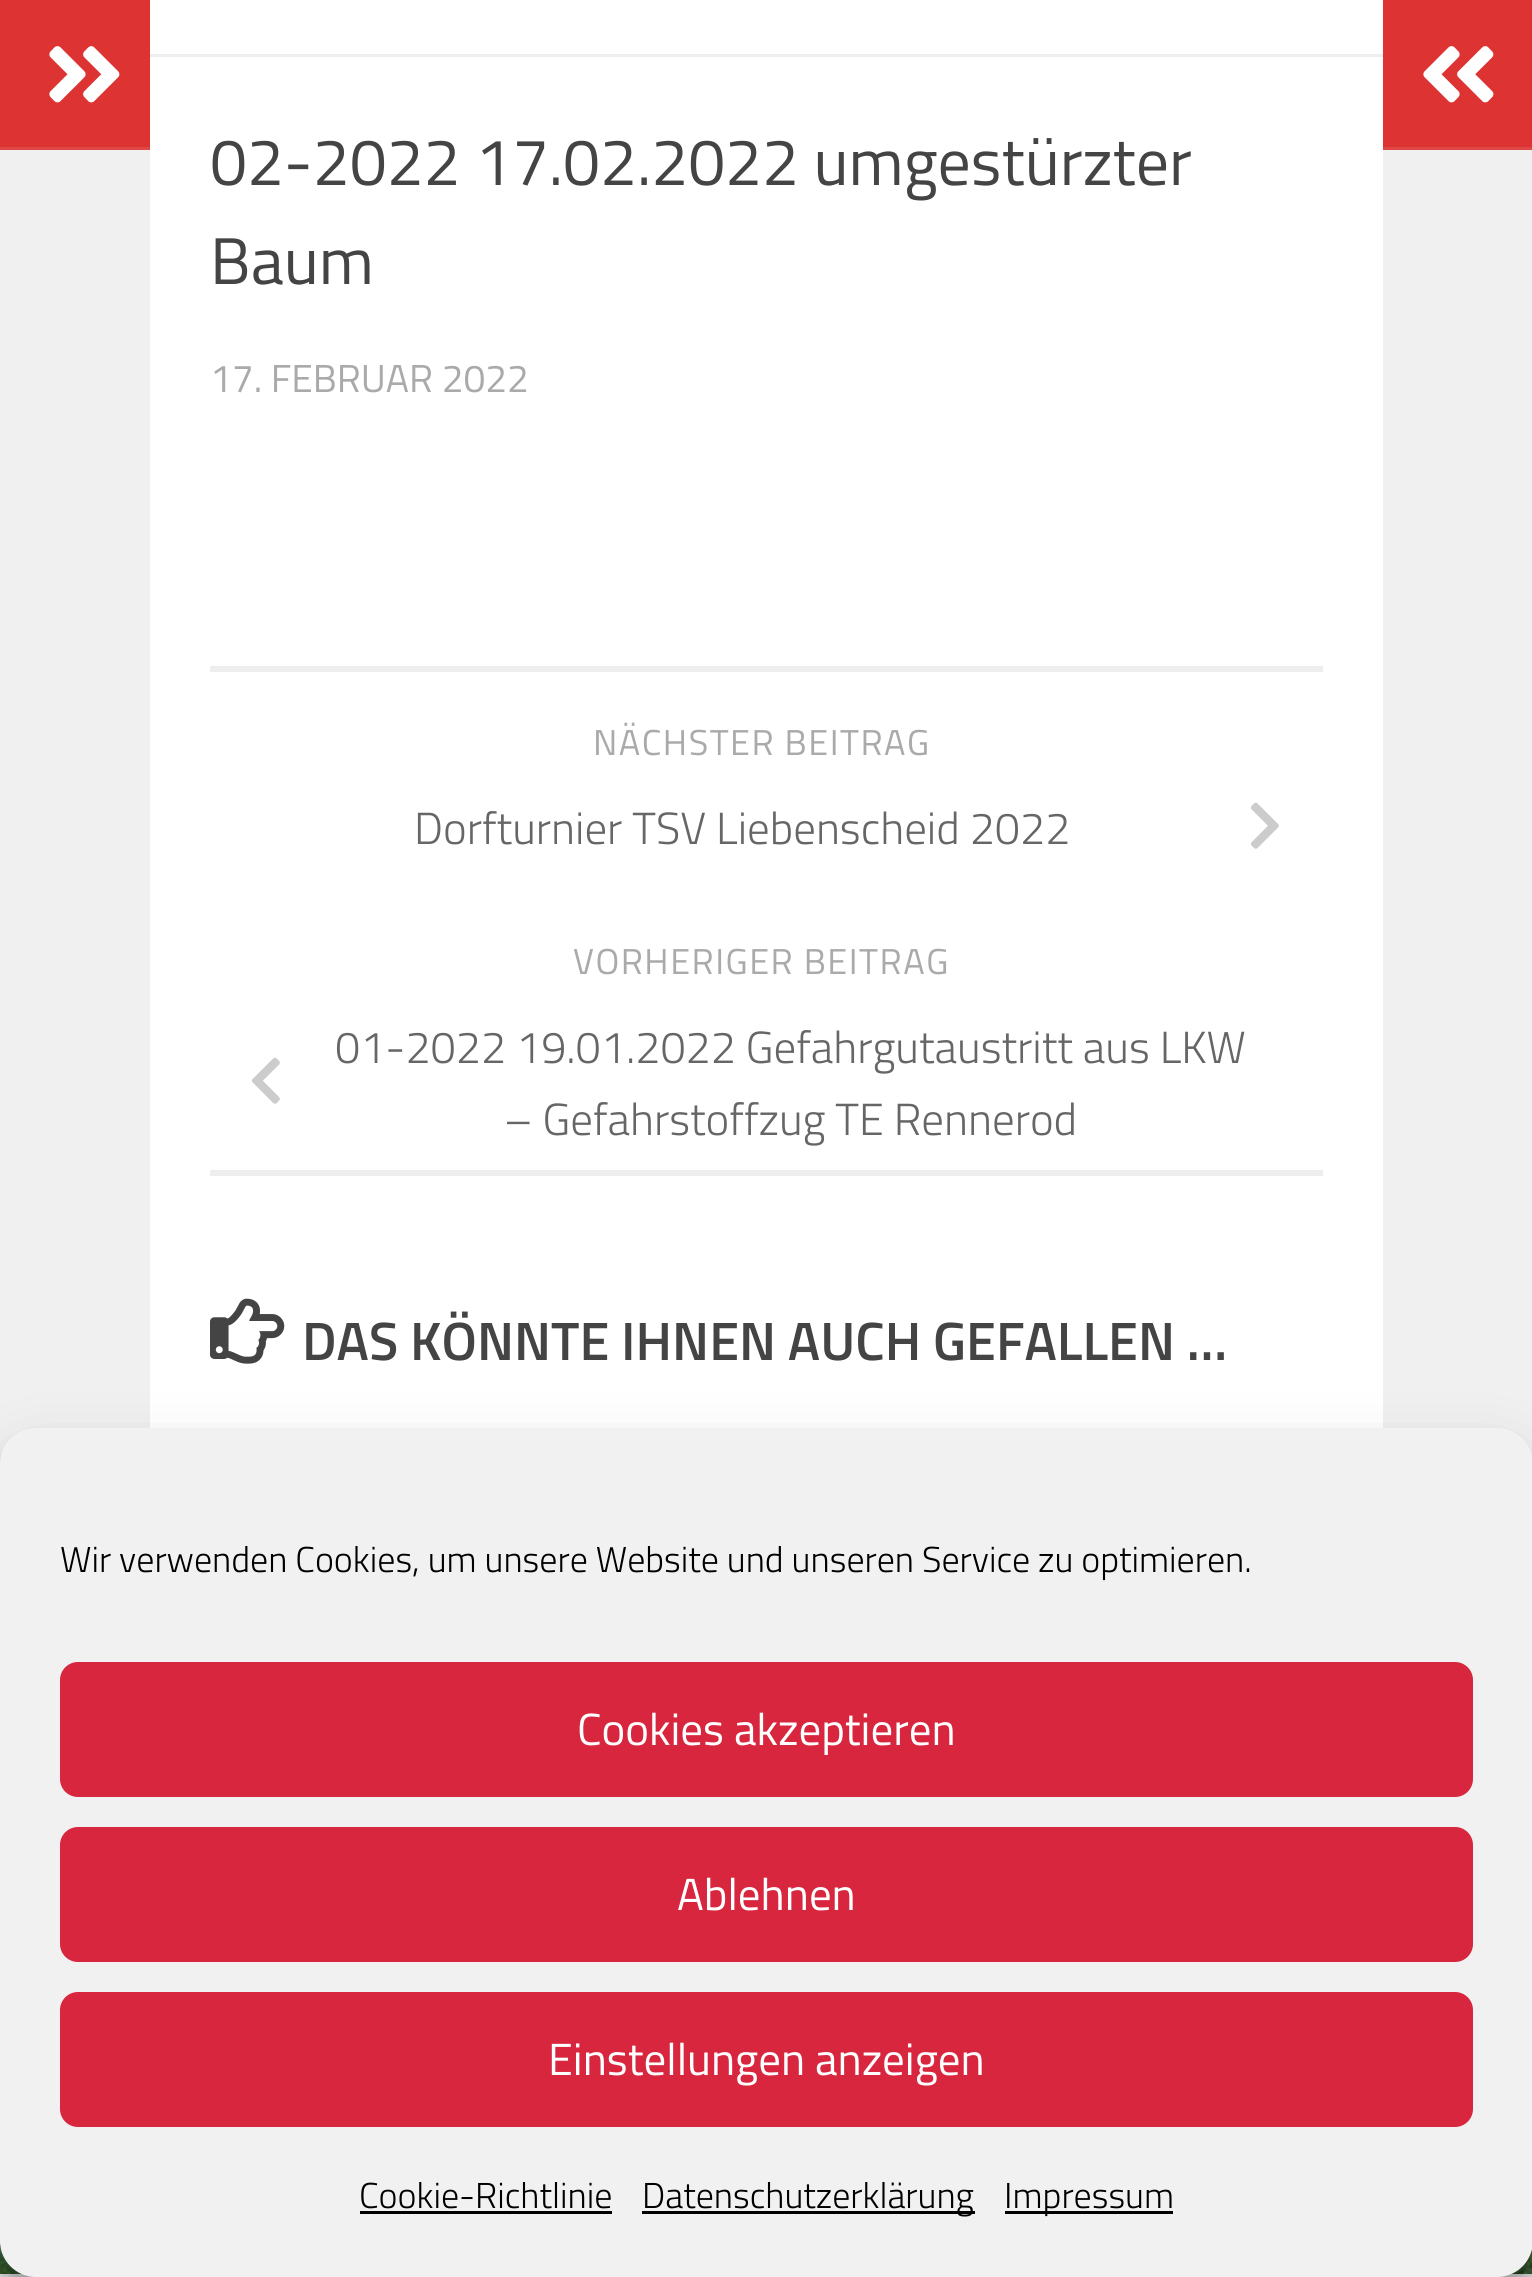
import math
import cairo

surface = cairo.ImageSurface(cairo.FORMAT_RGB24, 1532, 2277)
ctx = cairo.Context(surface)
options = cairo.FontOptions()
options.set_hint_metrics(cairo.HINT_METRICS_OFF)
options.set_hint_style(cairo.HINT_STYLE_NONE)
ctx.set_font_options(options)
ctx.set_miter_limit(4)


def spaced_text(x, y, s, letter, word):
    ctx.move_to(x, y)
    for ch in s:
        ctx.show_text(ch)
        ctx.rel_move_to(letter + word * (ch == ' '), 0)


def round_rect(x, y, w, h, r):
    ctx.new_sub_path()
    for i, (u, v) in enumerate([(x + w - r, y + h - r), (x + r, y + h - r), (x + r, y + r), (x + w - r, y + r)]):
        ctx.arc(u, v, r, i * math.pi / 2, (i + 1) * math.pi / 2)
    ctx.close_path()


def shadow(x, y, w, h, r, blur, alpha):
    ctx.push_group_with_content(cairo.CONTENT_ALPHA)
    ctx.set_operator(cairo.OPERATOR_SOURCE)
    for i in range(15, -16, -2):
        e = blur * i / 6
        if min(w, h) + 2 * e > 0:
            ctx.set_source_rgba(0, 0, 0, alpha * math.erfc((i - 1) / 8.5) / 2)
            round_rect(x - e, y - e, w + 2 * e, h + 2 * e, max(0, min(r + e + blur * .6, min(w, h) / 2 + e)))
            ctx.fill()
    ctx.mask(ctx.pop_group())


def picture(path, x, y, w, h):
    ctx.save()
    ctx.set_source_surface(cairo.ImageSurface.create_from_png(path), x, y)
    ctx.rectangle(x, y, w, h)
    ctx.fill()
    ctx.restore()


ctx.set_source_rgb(1, 1, 1)
ctx.paint()
picture("img1.png", 0, 2244, 1532, 30)
ctx.set_source_rgb(0, 0, 0)
shadow(0, -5, 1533, 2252, 0, 1.5, 0.1)
ctx.set_source_rgb(1, 1, 1)
ctx.rectangle(150, 0, 1233, 1428)
ctx.fill()
ctx.set_source_rgb(0.941, 0.941, 0.941)
ctx.rectangle(1, 150, 149, 2094)
ctx.fill()
ctx.set_source_rgb(0.867, 0.2, 0.2)
ctx.rectangle(0, 0, 150, 147)
ctx.fill()
ctx.set_source_rgb(0.878, 0.278, 0.278)
ctx.rectangle(0, 147, 150, 3)
ctx.fill()
picture("img2.png", 49, 46, 71, 57)
ctx.set_source_rgb(0.867, 0.2, 0.2)
ctx.rectangle(1383, 0, 149, 147)
ctx.fill()
ctx.set_source_rgb(0.878, 0.278, 0.278)
ctx.rectangle(1383, 147, 149, 3)
ctx.fill()
picture("img3.png", 1423, 46, 71, 57)
ctx.set_source_rgb(0.933, 0.933, 0.933)
ctx.rectangle(150, 54, 1233, 3)
ctx.fill()
ctx.select_font_face("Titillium")
ctx.set_font_size(66)
ctx.set_source_rgb(0.267, 0.267, 0.267)
ctx.move_to(210, 185)
ctx.show_text("02-2022 17.02.2022 umgestürzter")
ctx.move_to(210, 284)
ctx.show_text("Baum")
ctx.set_font_size(39)
ctx.set_source_rgb(0.667, 0.667, 0.667)
ctx.move_to(210, 392)
ctx.show_text("17. FEBRUAR 2022")
ctx.set_source_rgb(0.933, 0.933, 0.933)
ctx.rectangle(210, 666, 1113, 6)
ctx.fill()
ctx.rectangle(210, 1170, 1113, 6)
ctx.fill()
ctx.set_font_size(36)
ctx.set_source_rgb(0.667, 0.667, 0.667)
spaced_text(593, 755, "NÄCHSTER BEITRAG", 1.5, 0)
ctx.select_font_face("Titillium Light")
ctx.set_font_size(45)
ctx.set_source_rgb(0.4, 0.4, 0.4)
ctx.move_to(414, 844)
ctx.show_text("Dorfturnier TSV Liebenscheid 2022")
picture("img4.png", 1251, 802, 28, 47)
ctx.select_font_face("Titillium")
ctx.set_font_size(36)
ctx.set_source_rgb(0.667, 0.667, 0.667)
spaced_text(573, 974, "VORHERIGER BEITRAG", 1.5, 0)
ctx.select_font_face("Titillium Light")
ctx.set_font_size(45)
ctx.set_source_rgb(0.4, 0.4, 0.4)
ctx.move_to(335, 1063)
ctx.show_text("01-2022 19.01.2022 Gefahrgutaustritt aus LKW")
picture("img5.png", 251, 1057, 29, 47)
ctx.move_to(504, 1135)
ctx.show_text("– Gefahrstoffzug TE Rennerod")
picture("img6.png", 210, 1298, 75, 66)
ctx.select_font_face("Titillium SemiBold")
ctx.set_font_size(54)
ctx.set_source_rgb(0.267, 0.267, 0.267)
ctx.move_to(302, 1360)
ctx.show_text("DAS KÖNNTE IHNEN AUCH GEFALLEN …")
ctx.set_source_rgb(0.941, 0.941, 0.941)
ctx.rectangle(1383, 150, 149, 1306)
ctx.fill()
ctx.set_source_rgb(0.933, 0.933, 0.933)
ctx.rectangle(0, 2274, 1532, 3)
ctx.fill()
ctx.set_source_rgb(0, 0, 0)
shadow(0, 1446, 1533, 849, 36, 9, 0.23)
shadow(0, 1458, 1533, 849, 36, 30, 0.19)
ctx.set_source_rgb(0.945, 0.945, 0.945)
round_rect(0, 1428, 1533, 849, 36)
ctx.fill()
ctx.select_font_face("Titillium Light")
ctx.set_font_size(36)
ctx.set_source_rgb(0, 0, 0)
ctx.move_to(60, 1572)
ctx.show_text("Wir verwenden Cookies, um unsere Website und unseren Service zu optimieren.")
ctx.set_source_rgb(0.843, 0.149, 0.239)
round_rect(61.5, 1663.5, 1410, 132, 16.5)
ctx.fill_preserve()
ctx.set_line_width(3)
ctx.stroke()
ctx.select_font_face("Titillium")
ctx.set_font_size(45)
ctx.set_source_rgb(1, 1, 1)
ctx.move_to(577, 1745)
ctx.show_text("Cookies akzeptieren")
ctx.set_source_rgb(0.843, 0.149, 0.239)
round_rect(61.5, 1828.5, 1410, 132, 16.5)
ctx.fill_preserve()
ctx.stroke()
ctx.set_source_rgb(1, 1, 1)
ctx.move_to(677, 1910)
ctx.show_text("Ablehnen")
ctx.set_source_rgb(0.843, 0.149, 0.239)
round_rect(61.5, 1993.5, 1410, 132, 16.5)
ctx.fill_preserve()
ctx.stroke()
ctx.set_source_rgb(1, 1, 1)
ctx.move_to(548, 2075)
ctx.show_text("Einstellungen anzeigen")
ctx.select_font_face("Titillium Light")
ctx.set_font_size(36)
ctx.set_source_rgb(0, 0, 0)
ctx.move_to(359, 2208)
ctx.show_text("Cookie-Richtlinie")
ctx.rectangle(360, 2211, 252, 3)
ctx.fill()
ctx.rectangle(642, 2211, 333, 3)
ctx.fill()
ctx.move_to(642, 2208)
ctx.show_text("Datenschutzerklärung")
ctx.rectangle(1005, 2211, 168, 3)
ctx.fill()
ctx.move_to(1004, 2208)
ctx.show_text("Impressum")
surface.write_to_png("page.png")
